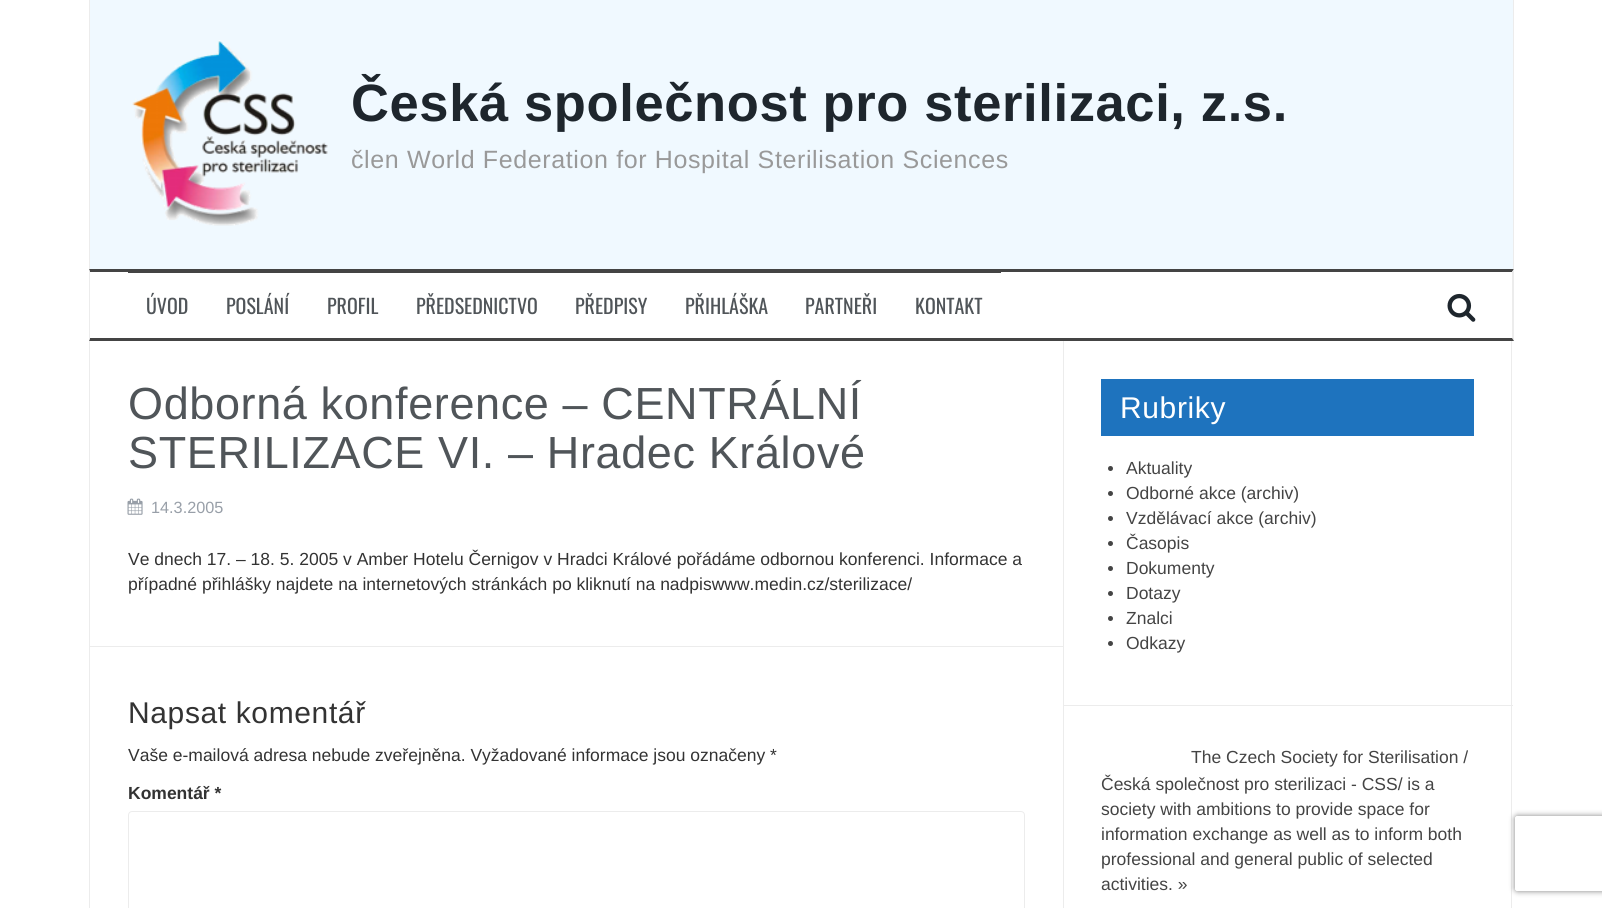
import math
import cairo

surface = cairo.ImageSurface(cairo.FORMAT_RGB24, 1602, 908)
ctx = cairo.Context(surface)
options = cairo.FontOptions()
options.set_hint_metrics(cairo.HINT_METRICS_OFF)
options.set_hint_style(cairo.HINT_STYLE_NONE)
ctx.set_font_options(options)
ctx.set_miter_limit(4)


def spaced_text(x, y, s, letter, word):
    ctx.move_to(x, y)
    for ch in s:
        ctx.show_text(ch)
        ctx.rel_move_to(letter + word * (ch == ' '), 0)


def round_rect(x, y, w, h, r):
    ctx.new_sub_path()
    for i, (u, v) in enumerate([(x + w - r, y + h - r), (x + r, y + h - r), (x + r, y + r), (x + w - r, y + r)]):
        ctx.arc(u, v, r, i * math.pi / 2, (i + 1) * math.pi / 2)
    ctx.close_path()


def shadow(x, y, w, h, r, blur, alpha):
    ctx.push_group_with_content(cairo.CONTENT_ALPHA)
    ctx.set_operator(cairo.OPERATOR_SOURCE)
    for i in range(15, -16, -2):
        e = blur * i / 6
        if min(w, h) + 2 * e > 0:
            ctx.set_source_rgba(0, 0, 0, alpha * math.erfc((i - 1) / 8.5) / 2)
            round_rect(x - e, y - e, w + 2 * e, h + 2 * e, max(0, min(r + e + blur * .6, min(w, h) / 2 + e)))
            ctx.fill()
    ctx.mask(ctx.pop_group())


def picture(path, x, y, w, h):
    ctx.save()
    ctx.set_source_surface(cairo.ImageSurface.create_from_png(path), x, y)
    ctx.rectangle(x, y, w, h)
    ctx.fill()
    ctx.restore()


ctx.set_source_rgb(1, 1, 1)
ctx.paint()
ctx.set_source_rgb(0.941, 0.973, 1)
ctx.rectangle(90, 0, 1423, 269)
ctx.fill()
ctx.set_source_rgb(0.922, 0.922, 0.922)
ctx.rectangle(1513, 0, 1, 269)
ctx.fill()
ctx.rectangle(89, 0, 1, 269)
ctx.fill()
picture("img1.png", 132, 40, 196, 186)
ctx.select_font_face("Liberation Sans", cairo.FONT_SLANT_NORMAL, cairo.FONT_WEIGHT_BOLD)
ctx.set_font_size(52.5)
ctx.set_source_rgb(0.118, 0.149, 0.176)
spaced_text(351, 121, "Česká společnost pro sterilizaci, z.s.", 0.62, 0)
ctx.select_font_face("Liberation Sans")
ctx.set_font_size(25)
ctx.set_source_rgb(0.6, 0.6, 0.6)
spaced_text(351, 168, "člen World Federation for Hospital Sterilisation Sciences", 0.62, 0)
ctx.set_source_rgb(0.267, 0.267, 0.267)
ctx.new_path()
ctx.move_to(89, 269)
ctx.line_to(1514, 269)
ctx.line_to(1512, 272)
ctx.line_to(90, 272)
ctx.close_path()
ctx.fill()
ctx.set_source_rgb(0.922, 0.922, 0.922)
ctx.new_path()
ctx.move_to(1514, 269)
ctx.line_to(1514, 341)
ctx.line_to(1512, 338)
ctx.line_to(1512, 272)
ctx.close_path()
ctx.fill()
ctx.set_source_rgb(0.267, 0.267, 0.267)
ctx.new_path()
ctx.move_to(1514, 341)
ctx.line_to(89, 341)
ctx.line_to(90, 338)
ctx.line_to(1512, 338)
ctx.close_path()
ctx.fill()
ctx.set_source_rgb(0.922, 0.922, 0.922)
ctx.new_path()
ctx.move_to(89, 341)
ctx.line_to(89, 269)
ctx.line_to(90, 272)
ctx.line_to(90, 338)
ctx.close_path()
ctx.fill()
ctx.set_source_rgb(0.267, 0.267, 0.267)
ctx.rectangle(128, 272, 873, 1)
ctx.fill()
ctx.select_font_face("Oswald")
ctx.set_font_size(20)
ctx.set_source_rgb(0.314, 0.333, 0.349)
ctx.move_to(146, 314)
ctx.show_text("ÚVOD")
ctx.move_to(226, 314)
ctx.show_text("POSLÁNÍ")
ctx.move_to(327, 314)
ctx.show_text("PROFIL")
ctx.move_to(416, 314)
ctx.show_text("PŘEDSEDNICTVO")
ctx.move_to(575, 314)
ctx.show_text("PŘEDPISY")
ctx.move_to(685, 314)
ctx.show_text("PŘIHLÁŠKA")
ctx.move_to(805, 314)
ctx.show_text("PARTNEŘI")
ctx.move_to(915, 314)
ctx.show_text("KONTAKT")
picture("img2.png", 1447, 293, 29, 29)
ctx.set_source_rgb(0.922, 0.922, 0.922)
ctx.rectangle(89, 646, 975, 1)
ctx.fill()
ctx.rectangle(89, 341, 1, 567)
ctx.fill()
ctx.select_font_face("Liberation Sans")
ctx.set_font_size(45)
ctx.set_source_rgb(0.314, 0.333, 0.349)
spaced_text(128, 419, "Odborná konference – CENTRÁLNÍ", 0.62, 0)
spaced_text(128, 468, "STERILIZACE VI. – Hradec Králové", 0.62, 0)
picture("img3.png", 127, 498, 16, 17)
ctx.set_font_size(16.25)
ctx.set_source_rgb(0.596, 0.624, 0.659)
ctx.move_to(151, 513)
ctx.show_text("14.3.2005")
ctx.set_font_size(17.5)
ctx.set_source_rgb(0.2, 0.2, 0.2)
ctx.move_to(128, 565)
ctx.show_text("Ve dnech 17. – 18. 5. 2005 v Amber Hotelu Černigov v Hradci Králové pořádáme odbornou konferenci. Informace a")
ctx.move_to(128, 590)
ctx.show_text("případné přihlášky najdete na internetových stránkách po kliknutí na nadpiswww.medin.cz/sterilizace/")
ctx.set_font_size(30)
spaced_text(128, 723, "Napsat komentář", 0.62, 0)
ctx.set_font_size(17.5)
ctx.move_to(128, 761)
ctx.show_text("Vaše e-mailová adresa nebude zveřejněna. Vyžadované informace jsou označeny *")
ctx.select_font_face("Liberation Sans", cairo.FONT_SLANT_NORMAL, cairo.FONT_WEIGHT_BOLD)
ctx.move_to(128, 799)
ctx.show_text("Komentář *")
round_rect(128.5, 811.5, 896, 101, 3.5)
ctx.set_source_rgb(0.922, 0.922, 0.922)
ctx.set_line_width(1)
ctx.stroke()
ctx.rectangle(1511, 341, 1, 567)
ctx.fill()
ctx.rectangle(1063, 705, 450, 1)
ctx.fill()
ctx.rectangle(1063, 341, 1, 567)
ctx.fill()
ctx.set_source_rgb(0.118, 0.451, 0.745)
ctx.rectangle(1101, 379, 373, 57)
ctx.fill()
ctx.select_font_face("Liberation Sans")
ctx.set_font_size(30)
ctx.set_source_rgb(1, 1, 1)
spaced_text(1120, 418, "Rubriky", 0.62, 0)
ctx.set_source_rgb(0.267, 0.267, 0.267)
ctx.new_path()
ctx.arc(1110.5, 468.5, 2.5, 0, 2 * math.pi)
ctx.fill()
ctx.set_font_size(17.5)
ctx.move_to(1126, 474)
ctx.show_text("Aktuality")
ctx.new_path()
ctx.arc(1110.5, 493.5, 2.5, 0, 2 * math.pi)
ctx.fill()
ctx.move_to(1126, 499)
ctx.show_text("Odborné akce (archiv)")
ctx.new_path()
ctx.arc(1110.5, 518.5, 2.5, 0, 2 * math.pi)
ctx.fill()
ctx.move_to(1126, 524)
ctx.show_text("Vzdělávací akce (archiv)")
ctx.new_path()
ctx.arc(1110.5, 543.5, 2.5, 0, 2 * math.pi)
ctx.fill()
ctx.move_to(1126, 549)
ctx.show_text("Časopis")
ctx.new_path()
ctx.arc(1110.5, 568.5, 2.5, 0, 2 * math.pi)
ctx.fill()
ctx.move_to(1126, 574)
ctx.show_text("Dokumenty")
ctx.new_path()
ctx.arc(1110.5, 593.5, 2.5, 0, 2 * math.pi)
ctx.fill()
ctx.move_to(1126, 599)
ctx.show_text("Dotazy")
ctx.new_path()
ctx.arc(1110.5, 618.5, 2.5, 0, 2 * math.pi)
ctx.fill()
ctx.move_to(1126, 624)
ctx.show_text("Znalci")
ctx.new_path()
ctx.arc(1110.5, 643.5, 2.5, 0, 2 * math.pi)
ctx.fill()
ctx.move_to(1126, 649)
ctx.show_text("Odkazy")
ctx.move_to(1191, 763)
ctx.show_text("The Czech Society for Sterilisation /")
ctx.move_to(1101, 790)
ctx.show_text("Česká společnost pro sterilizaci - CSS/ is a")
ctx.move_to(1101, 815)
ctx.show_text("society with ambitions to provide space for")
ctx.move_to(1101, 840)
ctx.show_text("information exchange as well as to inform both")
ctx.move_to(1101, 865)
ctx.show_text("professional and general public of selected")
ctx.move_to(1101, 890)
ctx.show_text("activities. »")
ctx.save()
ctx.set_fill_rule(cairo.FILL_RULE_EVEN_ODD)
ctx.new_path()
ctx.move_to(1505, 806)
ctx.line_to(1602, 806)
ctx.line_to(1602, 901)
ctx.line_to(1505, 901)
ctx.close_path()
ctx.move_to(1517.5, 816)
ctx.line_to(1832.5, 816)
ctx.curve_to(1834, 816, 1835, 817, 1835, 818.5)
ctx.line_to(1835, 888.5)
ctx.curve_to(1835, 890, 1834, 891, 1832.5, 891)
ctx.line_to(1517.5, 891)
ctx.curve_to(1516, 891, 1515, 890, 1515, 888.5)
ctx.line_to(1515, 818.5)
ctx.curve_to(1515, 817, 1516, 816, 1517.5, 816)
ctx.close_path()
ctx.clip()
ctx.set_source_rgb(0.502, 0.502, 0.502)
shadow(1515, 816, 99, 75, 2.5, 3, 1)
ctx.restore()
surface.write_to_png("page.png")
